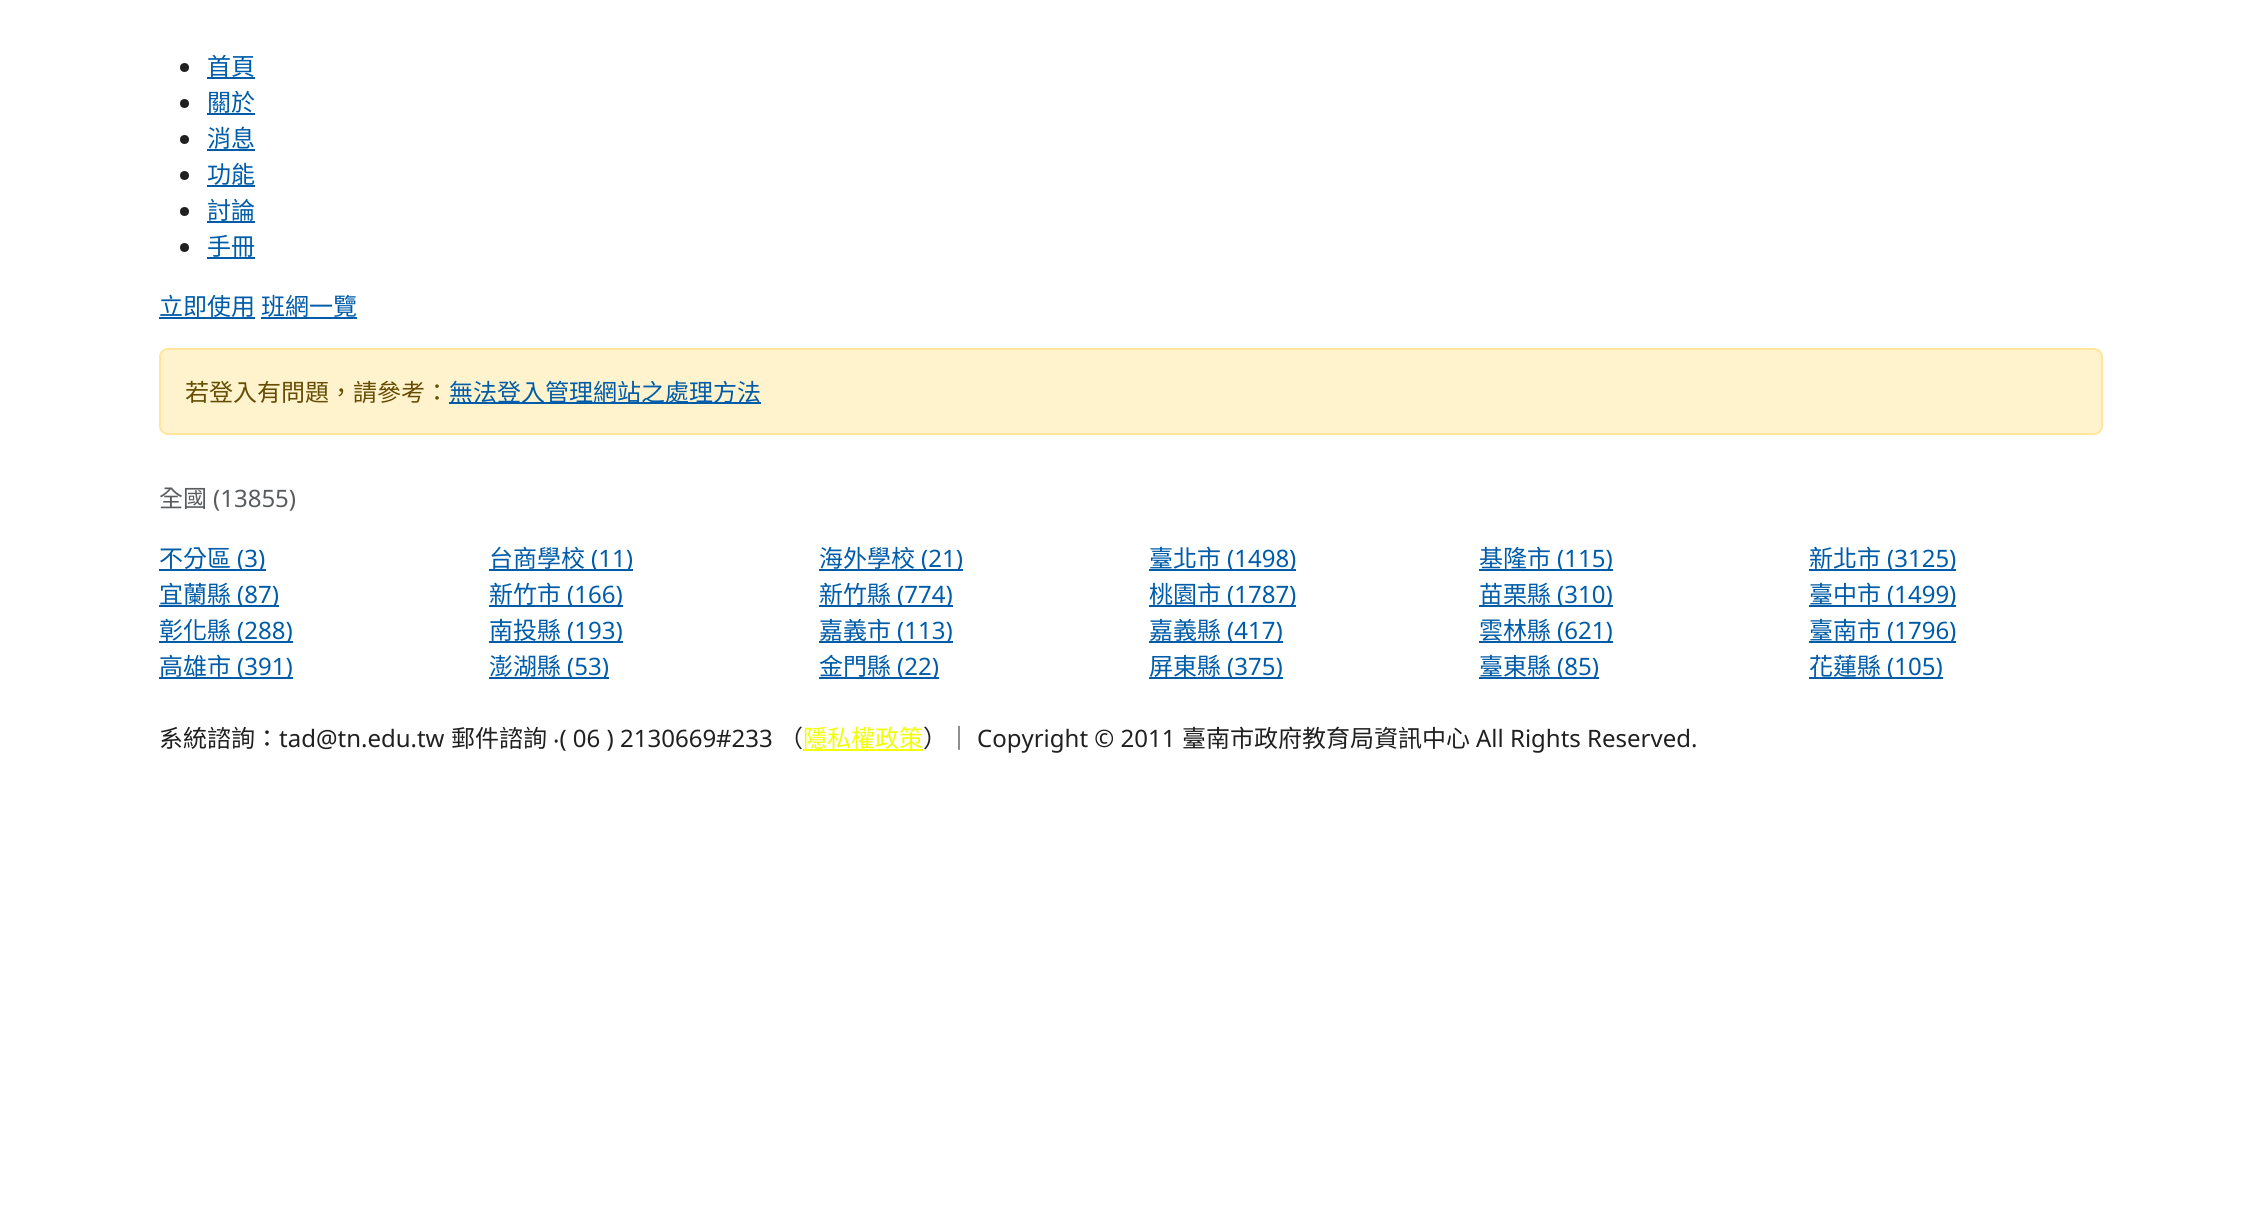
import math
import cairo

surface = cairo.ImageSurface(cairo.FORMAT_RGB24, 2261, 1232)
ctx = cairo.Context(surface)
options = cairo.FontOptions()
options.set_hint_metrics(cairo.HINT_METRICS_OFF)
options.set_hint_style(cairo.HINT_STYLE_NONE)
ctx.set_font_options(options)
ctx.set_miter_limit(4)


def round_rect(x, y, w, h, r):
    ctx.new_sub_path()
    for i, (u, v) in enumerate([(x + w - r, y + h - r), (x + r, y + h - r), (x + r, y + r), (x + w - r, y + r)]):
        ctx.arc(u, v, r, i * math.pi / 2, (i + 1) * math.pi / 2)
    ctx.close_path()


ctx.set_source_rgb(1, 1, 1)
ctx.paint()
ctx.set_source_rgb(0.125, 0.125, 0.125)
ctx.arc(184.5, 67.5, 4.5, 0, 2 * math.pi)
ctx.fill()
ctx.select_font_face("Noto Sans CJK TC")
ctx.set_font_size(24)
ctx.set_source_rgb(0, 0.361, 0.659)
ctx.move_to(207, 75)
ctx.show_text("首頁")
ctx.rectangle(207, 77, 48, 2)
ctx.fill()
ctx.set_source_rgb(0.125, 0.125, 0.125)
ctx.arc(184.5, 103.5, 4.5, 0, 2 * math.pi)
ctx.fill()
ctx.set_source_rgb(0, 0.361, 0.659)
ctx.move_to(207, 111)
ctx.show_text("關於")
ctx.rectangle(207, 113, 48, 2)
ctx.fill()
ctx.set_source_rgb(0.125, 0.125, 0.125)
ctx.arc(184.5, 139.5, 4.5, 0, 2 * math.pi)
ctx.fill()
ctx.set_source_rgb(0, 0.361, 0.659)
ctx.move_to(207, 147)
ctx.show_text("消息")
ctx.rectangle(207, 149, 48, 2)
ctx.fill()
ctx.set_source_rgb(0.125, 0.125, 0.125)
ctx.arc(184.5, 175.5, 4.5, 0, 2 * math.pi)
ctx.fill()
ctx.set_source_rgb(0, 0.361, 0.659)
ctx.move_to(207, 183)
ctx.show_text("功能")
ctx.rectangle(207, 185, 48, 2)
ctx.fill()
ctx.set_source_rgb(0.125, 0.125, 0.125)
ctx.arc(184.5, 211.5, 4.5, 0, 2 * math.pi)
ctx.fill()
ctx.set_source_rgb(0, 0.361, 0.659)
ctx.move_to(207, 219)
ctx.show_text("討論")
ctx.rectangle(207, 221, 48, 2)
ctx.fill()
ctx.set_source_rgb(0.125, 0.125, 0.125)
ctx.arc(184.5, 247.5, 4.5, 0, 2 * math.pi)
ctx.fill()
ctx.set_source_rgb(0, 0.361, 0.659)
ctx.move_to(207, 255)
ctx.show_text("手冊")
ctx.rectangle(207, 257, 48, 2)
ctx.fill()
ctx.move_to(159, 315)
ctx.show_text("立即使用")
ctx.rectangle(159, 317, 96, 2)
ctx.fill()
ctx.move_to(261, 315)
ctx.show_text("班網一覽")
ctx.rectangle(261, 317, 96, 2)
ctx.fill()
ctx.set_source_rgb(1, 0.953, 0.804)
round_rect(160, 349, 1942, 85, 8)
ctx.fill_preserve()
ctx.set_source_rgb(1, 0.902, 0.612)
ctx.stroke()
ctx.set_source_rgb(0.4, 0.302, 0.012)
ctx.move_to(185, 401)
ctx.show_text("若登入有問題，請參考：")
ctx.set_source_rgb(0, 0.361, 0.659)
ctx.rectangle(449, 402, 312, 2)
ctx.fill()
ctx.move_to(449, 401)
ctx.show_text("無法登入管理網站之處理方法")
ctx.set_source_rgb(0.349, 0.361, 0.373)
ctx.move_to(159, 507)
ctx.show_text("全國")
ctx.select_font_face("Noto Sans")
ctx.move_to(213, 507)
ctx.show_text("(13855)")
ctx.select_font_face("Noto Sans CJK TC")
ctx.set_source_rgb(0, 0.361, 0.659)
ctx.move_to(159, 567)
ctx.show_text("不分區")
ctx.rectangle(159, 569, 107, 2)
ctx.fill()
ctx.select_font_face("Noto Sans")
ctx.move_to(237, 567)
ctx.show_text("(3)")
ctx.select_font_face("Noto Sans CJK TC")
ctx.move_to(489, 567)
ctx.show_text("台商學校")
ctx.rectangle(489, 569, 144, 2)
ctx.fill()
ctx.select_font_face("Noto Sans")
ctx.move_to(591, 567)
ctx.show_text("(11)")
ctx.select_font_face("Noto Sans CJK TC")
ctx.move_to(819, 567)
ctx.show_text("海外學校")
ctx.rectangle(819, 569, 144, 2)
ctx.fill()
ctx.select_font_face("Noto Sans")
ctx.move_to(921, 567)
ctx.show_text("(21)")
ctx.select_font_face("Noto Sans CJK TC")
ctx.move_to(1149, 567)
ctx.show_text("臺北市")
ctx.rectangle(1149, 569, 147, 2)
ctx.fill()
ctx.select_font_face("Noto Sans")
ctx.move_to(1227, 567)
ctx.show_text("(1498)")
ctx.select_font_face("Noto Sans CJK TC")
ctx.move_to(1479, 567)
ctx.show_text("基隆市")
ctx.rectangle(1479, 569, 134, 2)
ctx.fill()
ctx.select_font_face("Noto Sans")
ctx.move_to(1557, 567)
ctx.show_text("(115)")
ctx.select_font_face("Noto Sans CJK TC")
ctx.move_to(1809, 567)
ctx.show_text("新北市")
ctx.rectangle(1809, 569, 147, 2)
ctx.fill()
ctx.select_font_face("Noto Sans")
ctx.move_to(1887, 567)
ctx.show_text("(3125)")
ctx.select_font_face("Noto Sans CJK TC")
ctx.move_to(159, 603)
ctx.show_text("宜蘭縣")
ctx.rectangle(159, 605, 120, 2)
ctx.fill()
ctx.select_font_face("Noto Sans")
ctx.move_to(237, 603)
ctx.show_text("(87)")
ctx.select_font_face("Noto Sans CJK TC")
ctx.move_to(489, 603)
ctx.show_text("新竹市")
ctx.rectangle(489, 605, 134, 2)
ctx.fill()
ctx.select_font_face("Noto Sans")
ctx.move_to(567, 603)
ctx.show_text("(166)")
ctx.select_font_face("Noto Sans CJK TC")
ctx.move_to(819, 603)
ctx.show_text("新竹縣")
ctx.rectangle(819, 605, 134, 2)
ctx.fill()
ctx.select_font_face("Noto Sans")
ctx.move_to(897, 603)
ctx.show_text("(774)")
ctx.select_font_face("Noto Sans CJK TC")
ctx.move_to(1149, 603)
ctx.show_text("桃園市")
ctx.rectangle(1149, 605, 147, 2)
ctx.fill()
ctx.select_font_face("Noto Sans")
ctx.move_to(1227, 603)
ctx.show_text("(1787)")
ctx.select_font_face("Noto Sans CJK TC")
ctx.move_to(1479, 603)
ctx.show_text("苗栗縣")
ctx.rectangle(1479, 605, 134, 2)
ctx.fill()
ctx.select_font_face("Noto Sans")
ctx.move_to(1557, 603)
ctx.show_text("(310)")
ctx.select_font_face("Noto Sans CJK TC")
ctx.move_to(1809, 603)
ctx.show_text("臺中市")
ctx.rectangle(1809, 605, 147, 2)
ctx.fill()
ctx.select_font_face("Noto Sans")
ctx.move_to(1887, 603)
ctx.show_text("(1499)")
ctx.select_font_face("Noto Sans CJK TC")
ctx.move_to(159, 639)
ctx.show_text("彰化縣")
ctx.rectangle(159, 641, 134, 2)
ctx.fill()
ctx.select_font_face("Noto Sans")
ctx.move_to(237, 639)
ctx.show_text("(288)")
ctx.select_font_face("Noto Sans CJK TC")
ctx.move_to(489, 639)
ctx.show_text("南投縣")
ctx.rectangle(489, 641, 134, 2)
ctx.fill()
ctx.select_font_face("Noto Sans")
ctx.move_to(567, 639)
ctx.show_text("(193)")
ctx.select_font_face("Noto Sans CJK TC")
ctx.move_to(819, 639)
ctx.show_text("嘉義市")
ctx.rectangle(819, 641, 134, 2)
ctx.fill()
ctx.select_font_face("Noto Sans")
ctx.move_to(897, 639)
ctx.show_text("(113)")
ctx.select_font_face("Noto Sans CJK TC")
ctx.move_to(1149, 639)
ctx.show_text("嘉義縣")
ctx.rectangle(1149, 641, 134, 2)
ctx.fill()
ctx.select_font_face("Noto Sans")
ctx.move_to(1227, 639)
ctx.show_text("(417)")
ctx.select_font_face("Noto Sans CJK TC")
ctx.move_to(1479, 639)
ctx.show_text("雲林縣")
ctx.rectangle(1479, 641, 134, 2)
ctx.fill()
ctx.select_font_face("Noto Sans")
ctx.move_to(1557, 639)
ctx.show_text("(621)")
ctx.select_font_face("Noto Sans CJK TC")
ctx.move_to(1809, 639)
ctx.show_text("臺南市")
ctx.rectangle(1809, 641, 147, 2)
ctx.fill()
ctx.select_font_face("Noto Sans")
ctx.move_to(1887, 639)
ctx.show_text("(1796)")
ctx.select_font_face("Noto Sans CJK TC")
ctx.move_to(159, 675)
ctx.show_text("高雄市")
ctx.rectangle(159, 677, 134, 2)
ctx.fill()
ctx.select_font_face("Noto Sans")
ctx.move_to(237, 675)
ctx.show_text("(391)")
ctx.select_font_face("Noto Sans CJK TC")
ctx.move_to(489, 675)
ctx.show_text("澎湖縣")
ctx.rectangle(489, 677, 120, 2)
ctx.fill()
ctx.select_font_face("Noto Sans")
ctx.move_to(567, 675)
ctx.show_text("(53)")
ctx.select_font_face("Noto Sans CJK TC")
ctx.move_to(819, 675)
ctx.show_text("金門縣")
ctx.rectangle(819, 677, 120, 2)
ctx.fill()
ctx.select_font_face("Noto Sans")
ctx.move_to(897, 675)
ctx.show_text("(22)")
ctx.select_font_face("Noto Sans CJK TC")
ctx.move_to(1149, 675)
ctx.show_text("屏東縣")
ctx.rectangle(1149, 677, 134, 2)
ctx.fill()
ctx.select_font_face("Noto Sans")
ctx.move_to(1227, 675)
ctx.show_text("(375)")
ctx.select_font_face("Noto Sans CJK TC")
ctx.move_to(1479, 675)
ctx.show_text("臺東縣")
ctx.rectangle(1479, 677, 120, 2)
ctx.fill()
ctx.select_font_face("Noto Sans")
ctx.move_to(1557, 675)
ctx.show_text("(85)")
ctx.select_font_face("Noto Sans CJK TC")
ctx.move_to(1809, 675)
ctx.show_text("花蓮縣")
ctx.rectangle(1809, 677, 134, 2)
ctx.fill()
ctx.select_font_face("Noto Sans")
ctx.move_to(1887, 675)
ctx.show_text("(105)")
ctx.select_font_face("Noto Sans CJK TC")
ctx.set_source_rgb(0.125, 0.125, 0.125)
ctx.move_to(159, 747)
ctx.show_text("系統諮詢：")
ctx.select_font_face("Noto Sans")
ctx.move_to(279, 747)
ctx.show_text("tad@tn.edu.tw")
ctx.select_font_face("Noto Sans CJK TC")
ctx.move_to(451, 747)
ctx.show_text("郵件諮詢")
ctx.select_font_face("Noto Sans")
ctx.move_to(553, 747)
ctx.show_text("‧( 06 ) 2130669#233")
ctx.select_font_face("Noto Sans CJK TC")
ctx.move_to(779, 747)
ctx.show_text("（")
ctx.set_source_rgb(0.949, 1, 0)
ctx.move_to(803, 747)
ctx.show_text("隱私權政策")
ctx.rectangle(803, 749, 120, 2)
ctx.fill()
ctx.set_source_rgb(0.125, 0.125, 0.125)
ctx.move_to(923, 747)
ctx.show_text("）｜")
ctx.select_font_face("Noto Sans")
ctx.move_to(977, 747)
ctx.show_text("Copyright © 2011")
ctx.select_font_face("Noto Sans CJK TC")
ctx.move_to(1182, 747)
ctx.show_text("臺南市政府教育局資訊中心")
ctx.select_font_face("Noto Sans")
ctx.move_to(1476, 747)
ctx.show_text("All Rights Reserved.")
surface.write_to_png("page.png")
